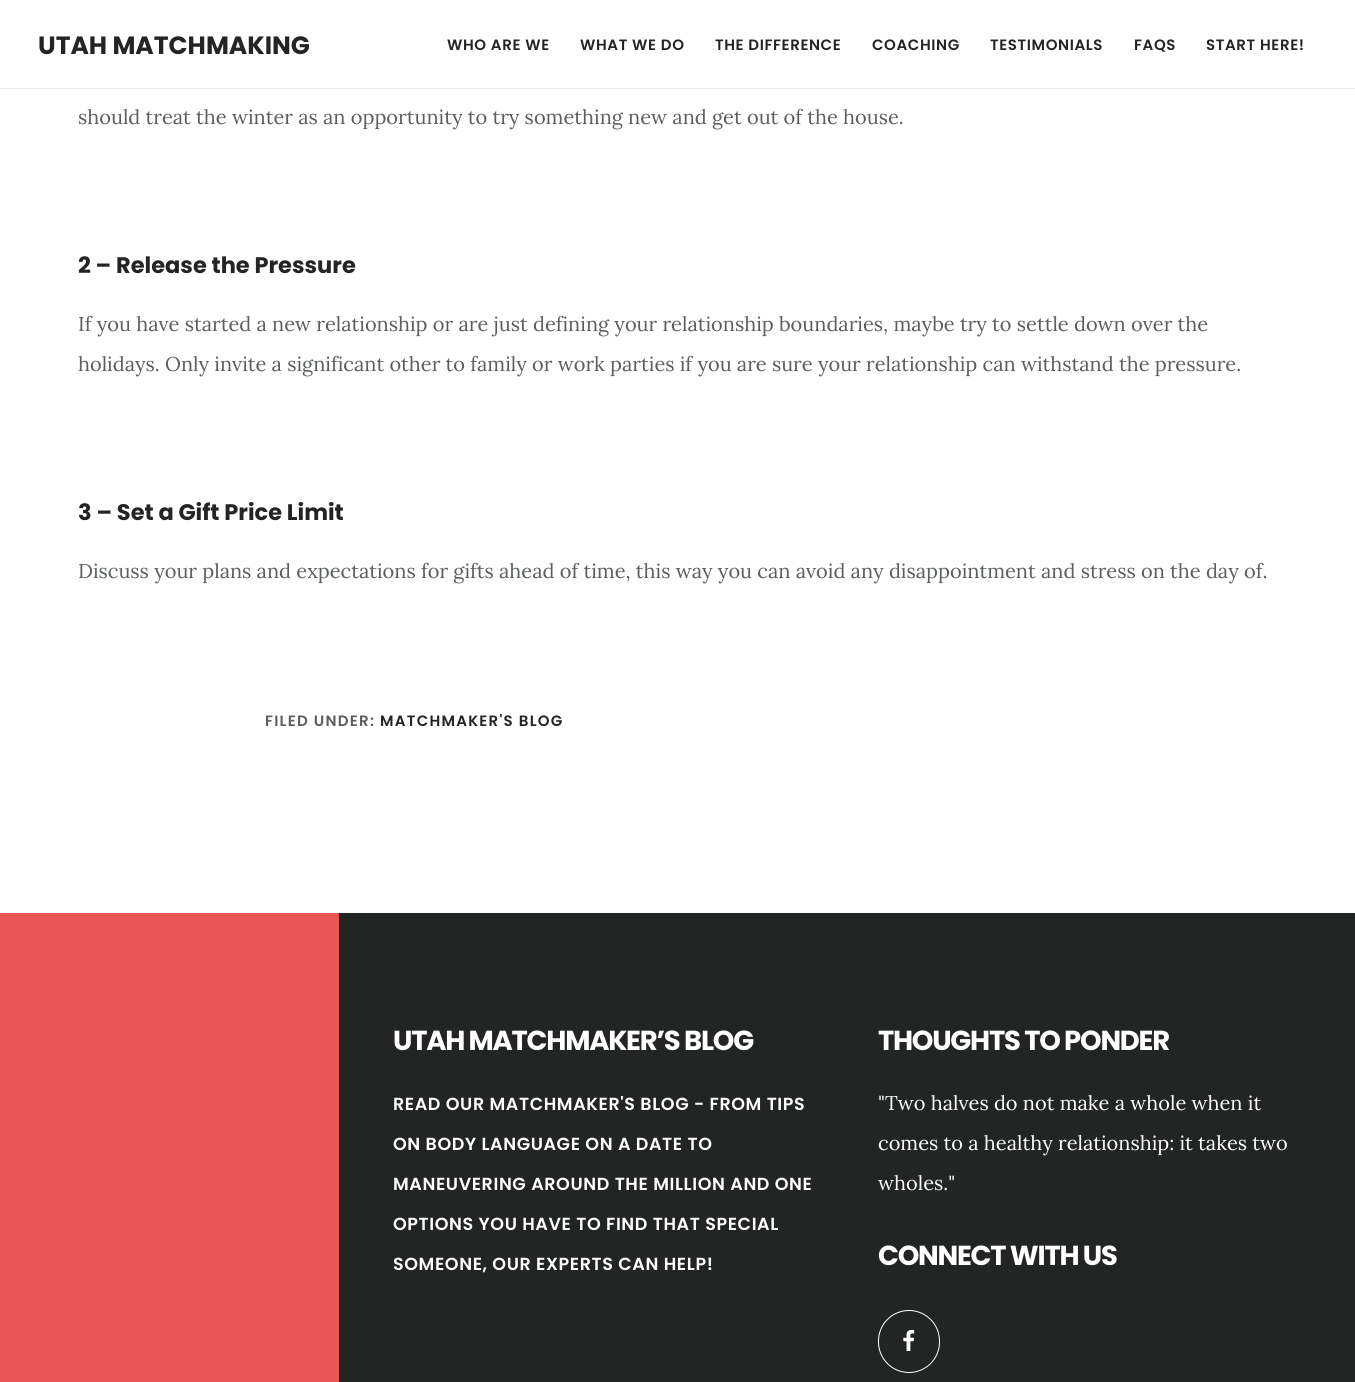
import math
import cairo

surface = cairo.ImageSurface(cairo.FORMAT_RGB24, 1355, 1382)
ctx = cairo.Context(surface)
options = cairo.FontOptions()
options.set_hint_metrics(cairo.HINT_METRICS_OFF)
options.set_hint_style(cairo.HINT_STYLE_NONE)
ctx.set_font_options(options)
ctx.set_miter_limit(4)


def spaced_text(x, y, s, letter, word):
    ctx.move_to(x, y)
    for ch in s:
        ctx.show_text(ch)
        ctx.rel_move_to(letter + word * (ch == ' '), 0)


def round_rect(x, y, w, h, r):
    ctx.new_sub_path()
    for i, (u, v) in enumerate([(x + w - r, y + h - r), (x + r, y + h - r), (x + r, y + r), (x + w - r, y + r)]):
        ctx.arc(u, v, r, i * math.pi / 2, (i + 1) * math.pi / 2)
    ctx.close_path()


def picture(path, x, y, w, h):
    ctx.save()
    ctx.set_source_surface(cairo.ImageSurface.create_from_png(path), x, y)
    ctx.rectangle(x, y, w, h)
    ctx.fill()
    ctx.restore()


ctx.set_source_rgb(1, 1, 1)
ctx.paint()
ctx.set_source_rgb(0.933, 0.933, 0.933)
ctx.rectangle(0, 88, 1355, 1)
ctx.fill()
ctx.select_font_face("Poppins", cairo.FONT_SLANT_NORMAL, cairo.FONT_WEIGHT_BOLD)
ctx.set_font_size(25)
ctx.set_source_rgb(0.137, 0.145, 0.145)
ctx.move_to(38, 54)
ctx.show_text("UTAH MATCHMAKING")
ctx.select_font_face("Poppins SemiBold")
ctx.set_font_size(15)
spaced_text(447, 50, "WHO ARE WE", 0.6, 0)
spaced_text(580, 50, "WHAT WE DO", 0.6, 0)
spaced_text(715, 50, "THE DIFFERENCE", 0.6, 0)
spaced_text(872, 50, "COACHING", 0.6, 0)
spaced_text(990, 50, "TESTIMONIALS", 0.6, 0)
spaced_text(1134, 50, "FAQS", 0.6, 0)
spaced_text(1206, 50, "START HERE!", 0.6, 0)
ctx.select_font_face("Lora")
ctx.set_font_size(20)
ctx.set_source_rgb(0.357, 0.369, 0.369)
ctx.move_to(78, 124)
ctx.show_text("should treat the winter as an opportunity to try something new and get out of the house.")
ctx.select_font_face("Poppins", cairo.FONT_SLANT_NORMAL, cairo.FONT_WEIGHT_BOLD)
ctx.set_font_size(22.5)
ctx.set_source_rgb(0.137, 0.145, 0.145)
ctx.move_to(78, 273)
ctx.show_text("2 – Release the Pressure")
ctx.select_font_face("Lora")
ctx.set_font_size(20)
ctx.set_source_rgb(0.357, 0.369, 0.369)
ctx.move_to(78, 331)
ctx.show_text("If you have started a new relationship or are just defining your relationship boundaries, maybe try to settle down over the")
ctx.move_to(78, 371)
ctx.show_text("holidays. Only invite a significant other to family or work parties if you are sure your relationship can withstand the pressure.")
ctx.select_font_face("Poppins", cairo.FONT_SLANT_NORMAL, cairo.FONT_WEIGHT_BOLD)
ctx.set_font_size(22.5)
ctx.set_source_rgb(0.137, 0.145, 0.145)
ctx.move_to(78, 520)
ctx.show_text("3 – Set a Gift Price Limit")
ctx.select_font_face("Lora")
ctx.set_font_size(20)
ctx.set_source_rgb(0.357, 0.369, 0.369)
ctx.move_to(78, 578)
ctx.show_text("Discuss your plans and expectations for gifts ahead of time, this way you can avoid any disappointment and stress on the day of.")
ctx.select_font_face("Poppins SemiBold")
ctx.set_font_size(15)
spaced_text(265, 726, "FILED UNDER:", 1.25, 0)
ctx.set_source_rgb(0.137, 0.145, 0.145)
spaced_text(380, 726, "MATCHMAKER'S BLOG", 1.25, 0)
ctx.rectangle(339, 913, 1016, 469)
ctx.fill()
ctx.set_source_rgb(0.91, 0.333, 0.333)
ctx.rectangle(0, 913, 339, 469)
ctx.fill()
ctx.select_font_face("Poppins", cairo.FONT_SLANT_NORMAL, cairo.FONT_WEIGHT_BOLD)
ctx.set_font_size(27.5)
ctx.set_source_rgb(1, 1, 1)
spaced_text(393, 1050, "UTAH MATCHMAKER’S BLOG", -1.25, 0)
ctx.select_font_face("Poppins SemiBold")
ctx.set_font_size(17.5)
spaced_text(393, 1110, "READ OUR MATCHMAKER'S BLOG - FROM TIPS", 0.6, 0)
spaced_text(393, 1150, "ON BODY LANGUAGE ON A DATE TO", 0.6, 0)
spaced_text(393, 1190, "MANEUVERING AROUND THE MILLION AND ONE", 0.6, 0)
spaced_text(393, 1230, "OPTIONS YOU HAVE TO FIND THAT SPECIAL", 0.6, 0)
spaced_text(393, 1270, "SOMEONE, OUR EXPERTS CAN HELP!", 0.6, 0)
ctx.select_font_face("Poppins", cairo.FONT_SLANT_NORMAL, cairo.FONT_WEIGHT_BOLD)
ctx.set_font_size(27.5)
spaced_text(878, 1050, "THOUGHTS TO PONDER", -1.25, 0)
ctx.select_font_face("Lora")
ctx.set_font_size(20)
ctx.move_to(878, 1110)
ctx.show_text("\"Two halves do not make a whole when it")
ctx.move_to(878, 1150)
ctx.show_text("comes to a healthy relationship: it takes two")
ctx.move_to(878, 1190)
ctx.show_text("wholes.\"")
ctx.select_font_face("Poppins", cairo.FONT_SLANT_NORMAL, cairo.FONT_WEIGHT_BOLD)
ctx.set_font_size(27.5)
spaced_text(878, 1265, "CONNECT WITH US", -1.25, 0)
round_rect(878.5, 1310.5, 61, 62, 30.5)
ctx.set_line_width(1)
ctx.stroke()
picture("img1.png", 903, 1330, 12, 21)
surface.write_to_png("page.png")
